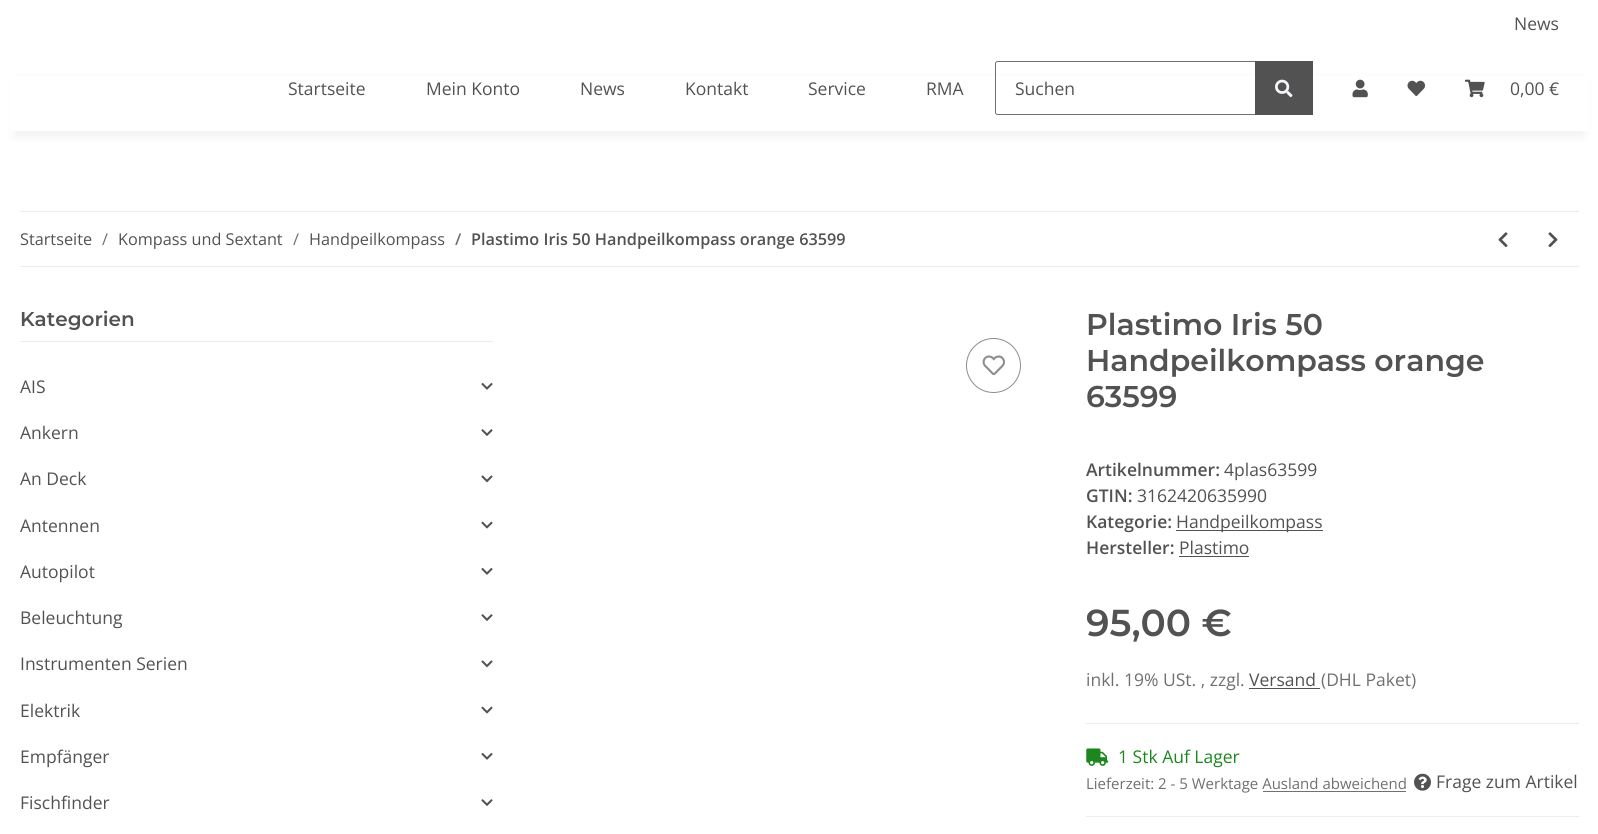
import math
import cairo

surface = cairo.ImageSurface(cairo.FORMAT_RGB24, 1598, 834)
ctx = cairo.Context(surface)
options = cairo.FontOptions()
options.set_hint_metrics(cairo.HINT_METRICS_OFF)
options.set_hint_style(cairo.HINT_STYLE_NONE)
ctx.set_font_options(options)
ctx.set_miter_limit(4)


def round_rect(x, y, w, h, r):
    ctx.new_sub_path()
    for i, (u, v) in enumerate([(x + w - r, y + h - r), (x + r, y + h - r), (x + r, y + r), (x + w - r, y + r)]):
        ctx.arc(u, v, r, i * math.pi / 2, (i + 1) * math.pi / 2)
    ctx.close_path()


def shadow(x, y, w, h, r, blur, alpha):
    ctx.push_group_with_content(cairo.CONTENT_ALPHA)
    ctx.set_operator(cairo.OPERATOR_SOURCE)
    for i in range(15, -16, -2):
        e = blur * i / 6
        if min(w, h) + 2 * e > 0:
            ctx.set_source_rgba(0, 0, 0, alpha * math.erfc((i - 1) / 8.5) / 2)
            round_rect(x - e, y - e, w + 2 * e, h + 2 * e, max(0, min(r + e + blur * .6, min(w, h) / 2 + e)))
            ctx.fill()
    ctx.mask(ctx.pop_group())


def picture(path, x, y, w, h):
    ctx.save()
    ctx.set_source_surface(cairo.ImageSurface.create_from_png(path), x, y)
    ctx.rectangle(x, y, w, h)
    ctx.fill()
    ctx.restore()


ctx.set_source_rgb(1, 1, 1)
ctx.paint()
ctx.select_font_face("Open Sans")
ctx.set_font_size(17.5)
ctx.set_source_rgb(0.322, 0.322, 0.322)
ctx.move_to(1514, 30)
ctx.show_text("News")
ctx.set_source_rgb(0, 0, 0)
shadow(15, 81, 1569, 55, 0, 5.5, 0.06)
ctx.set_source_rgb(1, 1, 1)
ctx.rectangle(10, 76, 1579, 55)
ctx.fill()
ctx.set_source_rgb(0.322, 0.322, 0.322)
ctx.move_to(288, 95)
ctx.show_text("Startseite")
ctx.move_to(426, 95)
ctx.show_text("Mein Konto")
ctx.move_to(580, 95)
ctx.show_text("News")
ctx.move_to(685, 95)
ctx.show_text("Kontakt")
ctx.move_to(808, 95)
ctx.show_text("Service")
ctx.move_to(926, 95)
ctx.show_text("RMA")
ctx.new_path()
ctx.move_to(997.5, 61.5)
ctx.line_to(1255.5, 61.5)
ctx.line_to(1255.5, 114.5)
ctx.line_to(997.5, 114.5)
ctx.curve_to(996.5, 114.5, 995.5, 113.5, 995.5, 112.5)
ctx.line_to(995.5, 63.5)
ctx.curve_to(995.5, 62.5, 996.5, 61.5, 997.5, 61.5)
ctx.close_path()
ctx.set_source_rgb(0.439, 0.439, 0.439)
ctx.set_line_width(1)
ctx.stroke()
ctx.set_source_rgb(0.322, 0.322, 0.322)
ctx.move_to(1015, 95)
ctx.show_text("Suchen")
ctx.rectangle(1255, 61, 58, 54)
ctx.fill()
picture("img1.png", 1275, 79, 18, 19)
picture("img2.png", 1352, 79, 16, 19)
picture("img3.png", 1407, 80, 18, 17)
picture("img4.png", 1465, 79, 20, 19)
ctx.move_to(1510, 95)
ctx.show_text("0,00 €")
ctx.set_source_rgb(0.922, 0.922, 0.922)
ctx.rectangle(20, 211, 1559, 1)
ctx.fill()
ctx.rectangle(20, 266, 1559, 1)
ctx.fill()
ctx.set_font_size(16.25)
ctx.set_source_rgb(0.322, 0.322, 0.322)
ctx.move_to(20, 245)
ctx.show_text("Startseite")
ctx.set_source_rgb(0.439, 0.439, 0.439)
ctx.move_to(102, 245)
ctx.show_text("/")
ctx.set_source_rgb(0.322, 0.322, 0.322)
ctx.move_to(118, 245)
ctx.show_text("Kompass und Sextant")
ctx.set_source_rgb(0.439, 0.439, 0.439)
ctx.move_to(293, 245)
ctx.show_text("/")
ctx.set_source_rgb(0.322, 0.322, 0.322)
ctx.move_to(309, 245)
ctx.show_text("Handpeilkompass")
ctx.select_font_face("Open Sans SemiBold")
ctx.set_source_rgb(0.439, 0.439, 0.439)
ctx.move_to(455, 245)
ctx.show_text("/")
ctx.set_source_rgb(0.322, 0.322, 0.322)
ctx.move_to(471, 245)
ctx.show_text("Plastimo Iris 50 Handpeilkompass orange 63599")
picture("img5.png", 1498, 232, 10, 16)
picture("img6.png", 1548, 232, 10, 16)
ctx.set_source_rgb(0.922, 0.922, 0.922)
ctx.rectangle(20, 341, 473, 1)
ctx.fill()
ctx.select_font_face("Montserrat SemiBold")
ctx.set_font_size(20)
ctx.set_source_rgb(0.322, 0.322, 0.322)
ctx.move_to(20, 326)
ctx.show_text("Kategorien")
ctx.select_font_face("Open Sans")
ctx.set_font_size(17.5)
ctx.move_to(20, 393)
ctx.show_text("AIS")
picture("img7.png", 481, 383, 12, 7)
ctx.move_to(20, 439)
ctx.show_text("Ankern")
picture("img8.png", 481, 429, 12, 7)
ctx.move_to(20, 485)
ctx.show_text("An Deck")
picture("img9.png", 481, 475, 12, 8)
ctx.move_to(20, 532)
ctx.show_text("Antennen")
picture("img10.png", 481, 521, 12, 8)
ctx.move_to(20, 578)
ctx.show_text("Autopilot")
picture("img7.png", 481, 568, 12, 7)
ctx.move_to(20, 624)
ctx.show_text("Beleuchtung")
picture("img8.png", 481, 614, 12, 7)
ctx.move_to(20, 670)
ctx.show_text("Instrumenten Serien")
picture("img9.png", 481, 660, 12, 8)
ctx.move_to(20, 717)
ctx.show_text("Elektrik")
picture("img10.png", 481, 706, 12, 8)
ctx.move_to(20, 763)
ctx.show_text("Empfänger")
picture("img7.png", 481, 753, 12, 7)
ctx.move_to(20, 809)
ctx.show_text("Fischfinder")
picture("img8.png", 481, 799, 12, 7)
ctx.arc(993.5, 365.5, 27, 0, 2 * math.pi)
ctx.set_source_rgb(0.553, 0.553, 0.553)
ctx.stroke()
picture("img11.png", 982, 355, 23, 21)
ctx.select_font_face("Montserrat SemiBold")
ctx.set_font_size(30)
ctx.set_source_rgb(0.322, 0.322, 0.322)
ctx.move_to(1086, 335)
ctx.show_text("Plastimo Iris 50")
ctx.move_to(1086, 371)
ctx.show_text("Handpeilkompass orange")
ctx.move_to(1086, 407)
ctx.show_text("63599")
ctx.select_font_face("Open Sans SemiBold")
ctx.set_font_size(17.5)
ctx.move_to(1086, 476)
ctx.show_text("Artikelnummer:")
ctx.select_font_face("Open Sans")
ctx.move_to(1224, 476)
ctx.show_text("4plas63599")
ctx.select_font_face("Open Sans SemiBold")
ctx.move_to(1086, 502)
ctx.show_text("GTIN:")
ctx.select_font_face("Open Sans")
ctx.move_to(1137, 502)
ctx.show_text("3162420635990")
ctx.select_font_face("Open Sans SemiBold")
ctx.move_to(1086, 528)
ctx.show_text("Kategorie:")
ctx.rectangle(1176, 530, 147, 1)
ctx.fill()
ctx.select_font_face("Open Sans")
ctx.move_to(1176, 528)
ctx.show_text("Handpeilkompass")
ctx.select_font_face("Open Sans SemiBold")
ctx.move_to(1086, 554)
ctx.show_text("Hersteller:")
ctx.select_font_face("Open Sans")
ctx.move_to(1179, 554)
ctx.show_text("Plastimo")
ctx.rectangle(1179, 556, 70, 1)
ctx.fill()
ctx.select_font_face("Montserrat SemiBold")
ctx.set_font_size(37.5)
ctx.move_to(1086, 636)
ctx.show_text("95,00 €")
ctx.select_font_face("Open Sans")
ctx.set_font_size(17.5)
ctx.set_source_rgb(0.439, 0.439, 0.439)
ctx.move_to(1086, 686)
ctx.show_text("inkl. 19% USt. , zzgl.")
ctx.set_source_rgb(0.322, 0.322, 0.322)
ctx.move_to(1249, 686)
ctx.show_text("Versand")
ctx.set_source_rgb(0.439, 0.439, 0.439)
ctx.move_to(1321, 686)
ctx.show_text("(DHL Paket)")
ctx.set_source_rgb(0.322, 0.322, 0.322)
ctx.rectangle(1249, 688, 71, 1)
ctx.fill()
ctx.set_source_rgb(0.922, 0.922, 0.922)
ctx.rectangle(1086, 723, 493, 1)
ctx.fill()
ctx.rectangle(1086, 816, 493, 1)
ctx.fill()
picture("img12.png", 1086, 748, 23, 18)
ctx.set_source_rgb(0.11, 0.529, 0.118)
ctx.move_to(1118, 763)
ctx.show_text("1 Stk Auf Lager")
ctx.set_font_size(15)
ctx.set_source_rgb(0.439, 0.439, 0.439)
ctx.move_to(1086, 789)
ctx.show_text("Lieferzeit: 2 - 5 Werktage Ausland abweichend")
ctx.rectangle(1263, 791, 143, 1)
ctx.fill()
picture("img13.png", 1414, 773, 17, 18)
ctx.set_font_size(17.5)
ctx.set_source_rgb(0.322, 0.322, 0.322)
ctx.move_to(1436, 788)
ctx.show_text("Frage zum Artikel")
surface.write_to_png("page.png")
